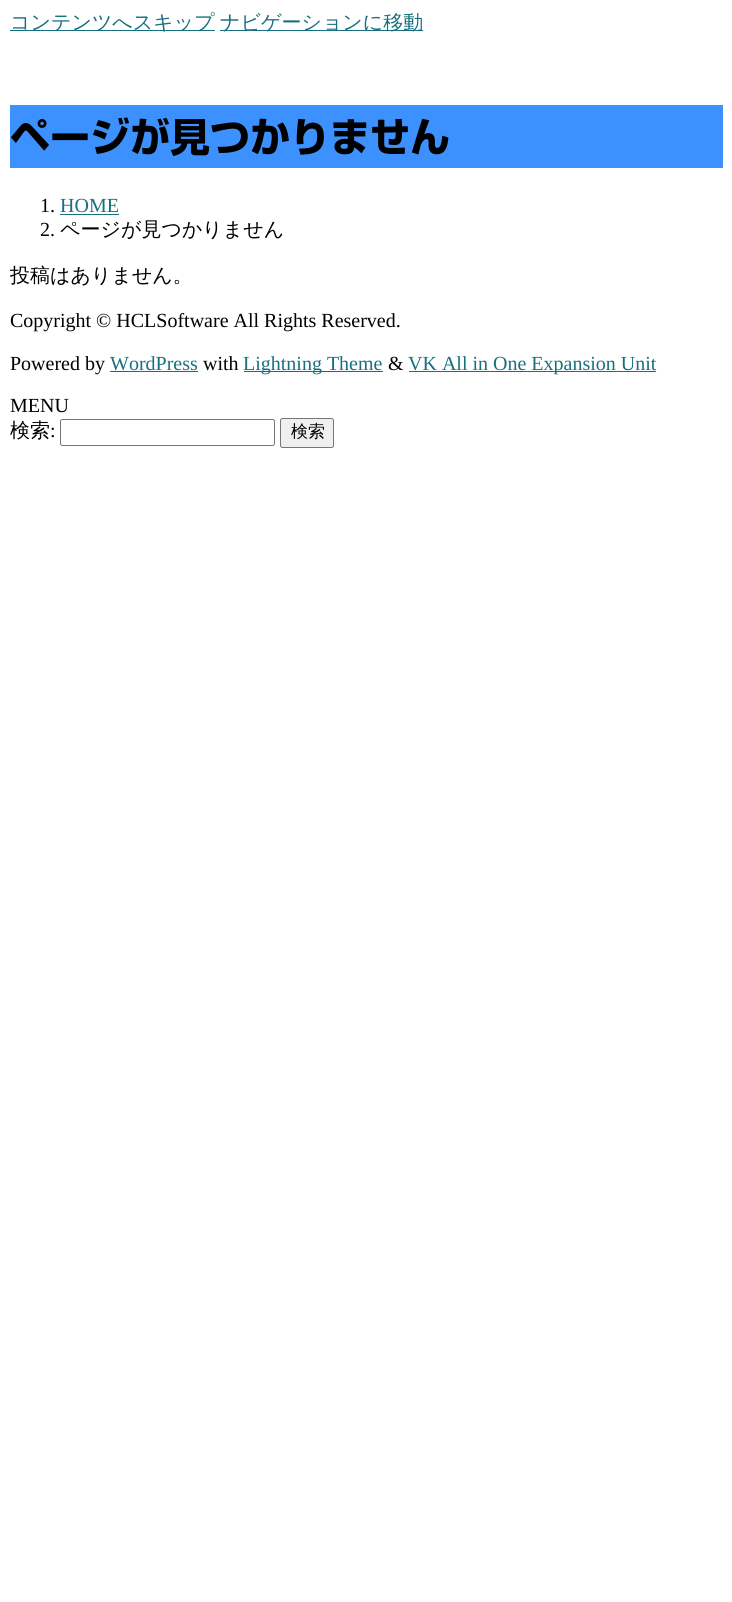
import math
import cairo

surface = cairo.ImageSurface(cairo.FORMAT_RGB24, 732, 1602)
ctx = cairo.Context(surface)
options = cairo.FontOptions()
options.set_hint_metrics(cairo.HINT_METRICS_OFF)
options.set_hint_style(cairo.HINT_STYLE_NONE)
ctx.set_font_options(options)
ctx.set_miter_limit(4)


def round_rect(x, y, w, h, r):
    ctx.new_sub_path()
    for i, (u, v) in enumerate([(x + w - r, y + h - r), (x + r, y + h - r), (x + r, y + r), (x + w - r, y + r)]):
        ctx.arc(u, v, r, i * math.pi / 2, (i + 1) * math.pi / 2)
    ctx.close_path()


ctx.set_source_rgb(1, 1, 1)
ctx.paint()
ctx.set_source_rgb(0.09, 0.439, 0.498)
ctx.rectangle(10, 30, 205, 1)
ctx.fill()
ctx.select_font_face("WenQuanYi Zen Hei Medium")
ctx.set_font_size(20)
ctx.move_to(10, 29)
ctx.show_text("コンテンツへスキップ")
ctx.rectangle(220, 30, 203, 1)
ctx.fill()
ctx.move_to(220, 29)
ctx.show_text("ナビゲーションに移動")
ctx.set_source_rgb(0.235, 0.569, 1)
ctx.rectangle(10, 105, 713, 63)
ctx.fill()
ctx.select_font_face("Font", cairo.FONT_SLANT_NORMAL, cairo.FONT_WEIGHT_BOLD)
ctx.set_font_size(40)
ctx.set_source_rgb(0, 0, 0)
ctx.move_to(10, 152)
ctx.show_text("ページが見つかりません")
ctx.select_font_face("Liberation Serif")
ctx.set_font_size(20)
ctx.move_to(40, 212)
ctx.show_text("1.")
ctx.set_source_rgb(0.09, 0.439, 0.498)
ctx.move_to(60, 212)
ctx.show_text("HOME")
ctx.rectangle(60, 214, 59, 1)
ctx.fill()
ctx.set_source_rgb(0, 0, 0)
ctx.move_to(40, 236)
ctx.show_text("2.")
ctx.select_font_face("WenQuanYi Zen Hei Medium")
ctx.move_to(60, 236)
ctx.show_text("ページが見つかりません")
ctx.move_to(10, 282)
ctx.show_text("投稿はありません。")
ctx.select_font_face("Liberation Serif")
ctx.move_to(10, 327)
ctx.show_text("Copyright © HCLSoftware All Rights Reserved.")
ctx.move_to(10, 370)
ctx.show_text("Powered by")
ctx.set_source_rgb(0.09, 0.439, 0.498)
ctx.move_to(110, 370)
ctx.show_text("WordPress")
ctx.rectangle(110, 371, 88, 1)
ctx.fill()
ctx.set_source_rgb(0, 0, 0)
ctx.move_to(203, 370)
ctx.show_text("with")
ctx.set_source_rgb(0.09, 0.439, 0.498)
ctx.rectangle(244, 371, 139, 1)
ctx.fill()
ctx.move_to(243, 370)
ctx.show_text("Lightning Theme")
ctx.set_source_rgb(0, 0, 0)
ctx.move_to(388, 370)
ctx.show_text("&")
ctx.set_source_rgb(0.09, 0.439, 0.498)
ctx.rectangle(409, 371, 247, 1)
ctx.fill()
ctx.move_to(408, 370)
ctx.show_text("VK All in One Expansion Unit")
ctx.set_source_rgb(0, 0, 0)
ctx.move_to(10, 412)
ctx.show_text("MENU")
ctx.select_font_face("WenQuanYi Zen Hei Medium")
ctx.move_to(10, 437)
ctx.show_text("検索")
ctx.select_font_face("Liberation Serif")
ctx.move_to(50, 437)
ctx.show_text(":")
round_rect(60.5, 419.5, 214, 26, 2)
ctx.set_source_rgb(0.463, 0.463, 0.463)
ctx.set_line_width(1)
ctx.stroke()
ctx.set_source_rgb(0.937, 0.937, 0.937)
round_rect(280.5, 418.5, 53, 29, 2)
ctx.fill_preserve()
ctx.set_source_rgb(0.463, 0.463, 0.463)
ctx.stroke()
ctx.select_font_face("WenQuanYi Zen Hei Medium")
ctx.set_font_size(17)
ctx.set_source_rgb(0, 0, 0)
ctx.move_to(291, 437)
ctx.show_text("検索")
surface.write_to_png("page.png")
